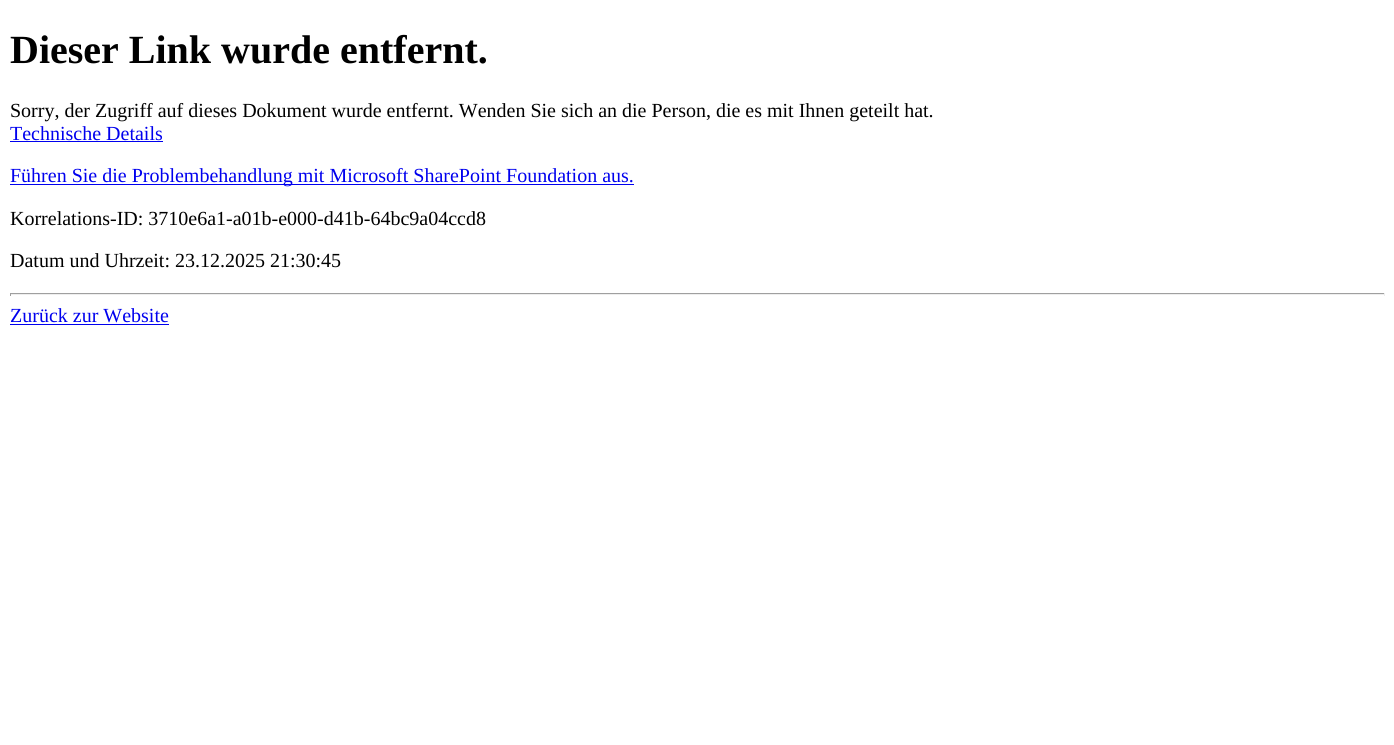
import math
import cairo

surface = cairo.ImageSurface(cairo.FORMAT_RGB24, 1394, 745)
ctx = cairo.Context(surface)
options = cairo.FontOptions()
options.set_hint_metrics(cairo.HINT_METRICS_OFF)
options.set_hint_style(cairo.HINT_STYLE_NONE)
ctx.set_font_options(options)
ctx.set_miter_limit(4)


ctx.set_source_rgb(1, 1, 1)
ctx.paint()
ctx.select_font_face("Liberation Serif", cairo.FONT_SLANT_NORMAL, cairo.FONT_WEIGHT_BOLD)
ctx.set_font_size(40)
ctx.set_source_rgb(0, 0, 0)
ctx.move_to(10, 63)
ctx.show_text("Dieser Link wurde entfernt.")
ctx.select_font_face("Liberation Serif")
ctx.set_font_size(20)
ctx.move_to(10, 117)
ctx.show_text("Sorry, der Zugriff auf dieses Dokument wurde entfernt. Wenden Sie sich an die Person, die es mit Ihnen geteilt hat.")
ctx.set_source_rgb(0, 0, 0.933)
ctx.move_to(10, 140)
ctx.show_text("Technische Details")
ctx.rectangle(10, 141, 153, 1)
ctx.fill()
ctx.rectangle(10, 184, 624, 1)
ctx.fill()
ctx.move_to(10, 182)
ctx.show_text("Führen Sie die Problembehandlung mit Microsoft SharePoint Foundation aus.")
ctx.set_source_rgb(0, 0, 0)
ctx.move_to(10, 225)
ctx.show_text("Korrelations-ID: 3710e6a1-a01b-e000-d41b-64bc9a04ccd8")
ctx.move_to(10, 267)
ctx.show_text("Datum und Uhrzeit: 23.12.2025 21:30:45")
ctx.set_source_rgb(0.624, 0.624, 0.624)
ctx.rectangle(10, 293, 1375, 1)
ctx.fill()
ctx.set_source_rgb(0.933, 0.933, 0.933)
ctx.rectangle(1384, 293, 1, 3)
ctx.fill()
ctx.rectangle(10, 294, 1375, 1)
ctx.fill()
ctx.set_source_rgb(0.624, 0.624, 0.624)
ctx.rectangle(10, 293, 1, 3)
ctx.fill()
ctx.set_source_rgb(0, 0, 0.933)
ctx.move_to(10, 322)
ctx.show_text("Zurück zur Website")
ctx.rectangle(10, 324, 159, 1)
ctx.fill()
surface.write_to_png("page.png")
